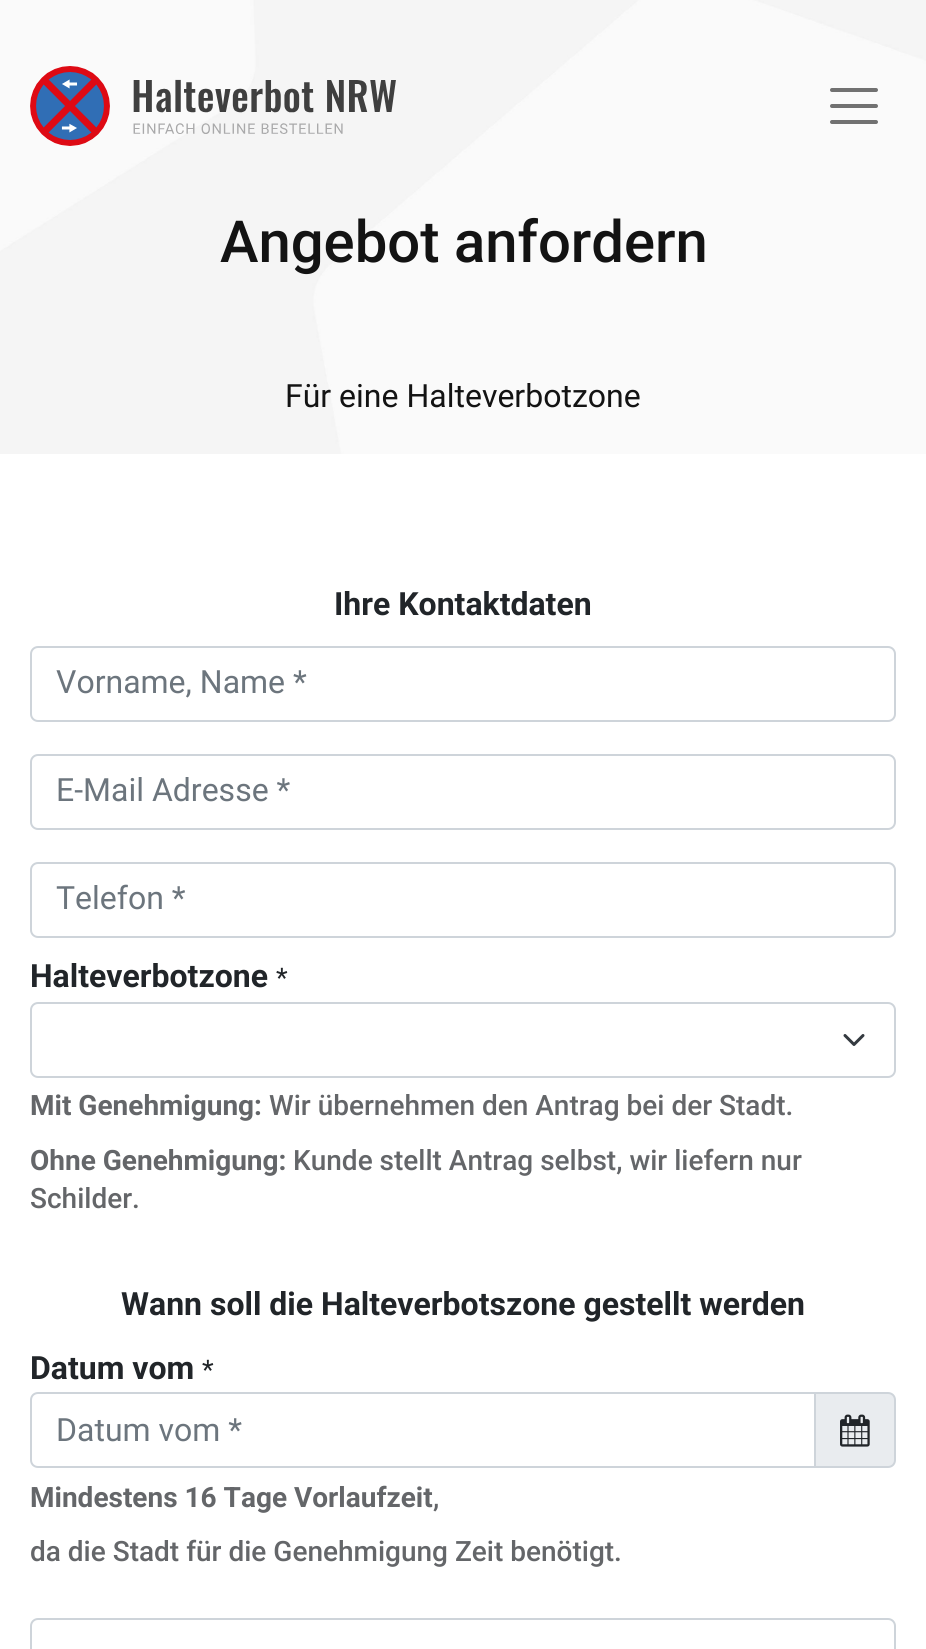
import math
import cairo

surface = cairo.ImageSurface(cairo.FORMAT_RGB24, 926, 1649)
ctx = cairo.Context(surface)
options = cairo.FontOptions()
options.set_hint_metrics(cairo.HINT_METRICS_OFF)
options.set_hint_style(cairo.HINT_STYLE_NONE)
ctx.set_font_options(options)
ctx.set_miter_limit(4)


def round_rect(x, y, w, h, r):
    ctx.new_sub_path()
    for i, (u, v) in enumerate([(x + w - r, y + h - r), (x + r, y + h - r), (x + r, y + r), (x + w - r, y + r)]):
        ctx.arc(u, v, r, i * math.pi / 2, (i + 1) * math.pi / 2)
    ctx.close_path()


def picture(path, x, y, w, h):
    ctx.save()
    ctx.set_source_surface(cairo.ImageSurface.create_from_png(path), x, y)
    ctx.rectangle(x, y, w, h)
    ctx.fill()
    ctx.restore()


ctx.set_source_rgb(1, 1, 1)
ctx.paint()
picture("img2.png", 0, 0, 926, 454)
picture("img1.png", 30, 66, 366, 80)
ctx.new_path()
ctx.move_to(832, 90)
ctx.line_to(876, 90)
ctx.move_to(832, 106)
ctx.line_to(876, 106)
ctx.move_to(832, 122)
ctx.line_to(876, 122)
ctx.set_source_rgb(0.443, 0.443, 0.443)
ctx.set_line_width(4)
ctx.set_line_cap(cairo.LINE_CAP_ROUND)
ctx.stroke()
ctx.select_font_face("Roboto Medium")
ctx.set_font_size(58)
ctx.set_source_rgb(0.075, 0.075, 0.075)
ctx.move_to(220, 262)
ctx.show_text("Angebot anfordern")
ctx.select_font_face("Roboto")
ctx.set_font_size(32)
ctx.move_to(285, 407)
ctx.show_text("Für eine Halteverbotzone")
ctx.select_font_face("Roboto", cairo.FONT_SLANT_NORMAL, cairo.FONT_WEIGHT_BOLD)
ctx.set_source_rgb(0.129, 0.145, 0.161)
ctx.move_to(334, 615)
ctx.show_text("Ihre Kontaktdaten")
round_rect(31, 647, 864, 74, 7)
ctx.set_source_rgb(0.808, 0.831, 0.855)
ctx.set_line_width(2)
ctx.set_line_cap(cairo.LINE_CAP_BUTT)
ctx.stroke()
ctx.select_font_face("Roboto")
ctx.set_source_rgb(0.424, 0.459, 0.49)
ctx.move_to(56, 693)
ctx.show_text("Vorname, Name *")
round_rect(31, 755, 864, 74, 7)
ctx.set_source_rgb(0.808, 0.831, 0.855)
ctx.stroke()
ctx.set_source_rgb(0.424, 0.459, 0.49)
ctx.move_to(56, 801)
ctx.show_text("E-Mail Adresse *")
round_rect(31, 863, 864, 74, 7)
ctx.set_source_rgb(0.808, 0.831, 0.855)
ctx.stroke()
ctx.set_source_rgb(0.424, 0.459, 0.49)
ctx.move_to(56, 909)
ctx.show_text("Telefon *")
ctx.select_font_face("Roboto", cairo.FONT_SLANT_NORMAL, cairo.FONT_WEIGHT_BOLD)
ctx.set_source_rgb(0.129, 0.145, 0.161)
ctx.move_to(30, 987)
ctx.show_text("Halteverbotzone")
ctx.select_font_face("Roboto")
ctx.set_font_size(27)
ctx.move_to(276, 987)
ctx.show_text("*")
ctx.new_path()
ctx.move_to(845, 1035.5)
ctx.line_to(854, 1044.5)
ctx.line_to(863, 1035.5)
ctx.set_source_rgb(0.204, 0.227, 0.251)
ctx.set_line_width(3)
ctx.set_line_cap(cairo.LINE_CAP_ROUND)
ctx.set_line_join(cairo.LINE_JOIN_ROUND)
ctx.stroke()
round_rect(31, 1003, 864, 74, 7)
ctx.set_source_rgb(0.808, 0.831, 0.855)
ctx.set_line_width(2)
ctx.set_line_cap(cairo.LINE_CAP_BUTT)
ctx.set_line_join(cairo.LINE_JOIN_MITER)
ctx.stroke()
ctx.select_font_face("Roboto", cairo.FONT_SLANT_NORMAL, cairo.FONT_WEIGHT_BOLD)
ctx.set_font_size(28)
ctx.set_source_rgb(0.392, 0.4, 0.412)
ctx.move_to(30, 1115)
ctx.show_text("Mit Genehmigung:")
ctx.select_font_face("Roboto Medium")
ctx.move_to(269, 1115)
ctx.show_text("Wir übernehmen den Antrag bei der Stadt.")
ctx.select_font_face("Roboto", cairo.FONT_SLANT_NORMAL, cairo.FONT_WEIGHT_BOLD)
ctx.move_to(30, 1170)
ctx.show_text("Ohne Genehmigung:")
ctx.select_font_face("Roboto Medium")
ctx.move_to(293, 1170)
ctx.show_text("Kunde stellt Antrag selbst, wir liefern nur")
ctx.move_to(30, 1208)
ctx.show_text("Schilder.")
ctx.select_font_face("Roboto", cairo.FONT_SLANT_NORMAL, cairo.FONT_WEIGHT_BOLD)
ctx.set_font_size(32)
ctx.set_source_rgb(0.129, 0.145, 0.161)
ctx.move_to(121, 1315)
ctx.show_text("Wann soll die Halteverbotszone gestellt werden")
ctx.move_to(30, 1379)
ctx.show_text("Datum vom")
ctx.select_font_face("Roboto")
ctx.set_font_size(27)
ctx.move_to(202, 1379)
ctx.show_text("*")
ctx.set_source_rgb(0.914, 0.925, 0.937)
ctx.new_path()
ctx.move_to(815, 1393)
ctx.line_to(888, 1393)
ctx.curve_to(892, 1393, 895, 1396, 895, 1400)
ctx.line_to(895, 1460)
ctx.curve_to(895, 1464, 892, 1467, 888, 1467)
ctx.line_to(815, 1467)
ctx.close_path()
ctx.fill_preserve()
ctx.set_source_rgb(0.808, 0.831, 0.855)
ctx.stroke()
ctx.new_path()
ctx.move_to(38, 1393)
ctx.line_to(815, 1393)
ctx.line_to(815, 1467)
ctx.line_to(38, 1467)
ctx.curve_to(34, 1467, 31, 1464, 31, 1460)
ctx.line_to(31, 1400)
ctx.curve_to(31, 1396, 34, 1393, 38, 1393)
ctx.close_path()
ctx.stroke()
ctx.set_font_size(32)
ctx.set_source_rgb(0.424, 0.459, 0.49)
ctx.move_to(56, 1441)
ctx.show_text("Datum vom *")
picture("img3.png", 840, 1414, 30, 33)
ctx.select_font_face("Roboto", cairo.FONT_SLANT_NORMAL, cairo.FONT_WEIGHT_BOLD)
ctx.set_font_size(28)
ctx.set_source_rgb(0.392, 0.4, 0.412)
ctx.move_to(30, 1507)
ctx.show_text("Mindestens 16 Tage Vorlaufzeit")
ctx.select_font_face("Roboto Medium")
ctx.move_to(433, 1507)
ctx.show_text(",")
ctx.move_to(30, 1561)
ctx.show_text("da die Stadt für die Genehmigung Zeit benötigt.")
round_rect(31, 1619, 864, 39, 7)
ctx.set_source_rgb(0.808, 0.831, 0.855)
ctx.stroke()
surface.write_to_png("page.png")
